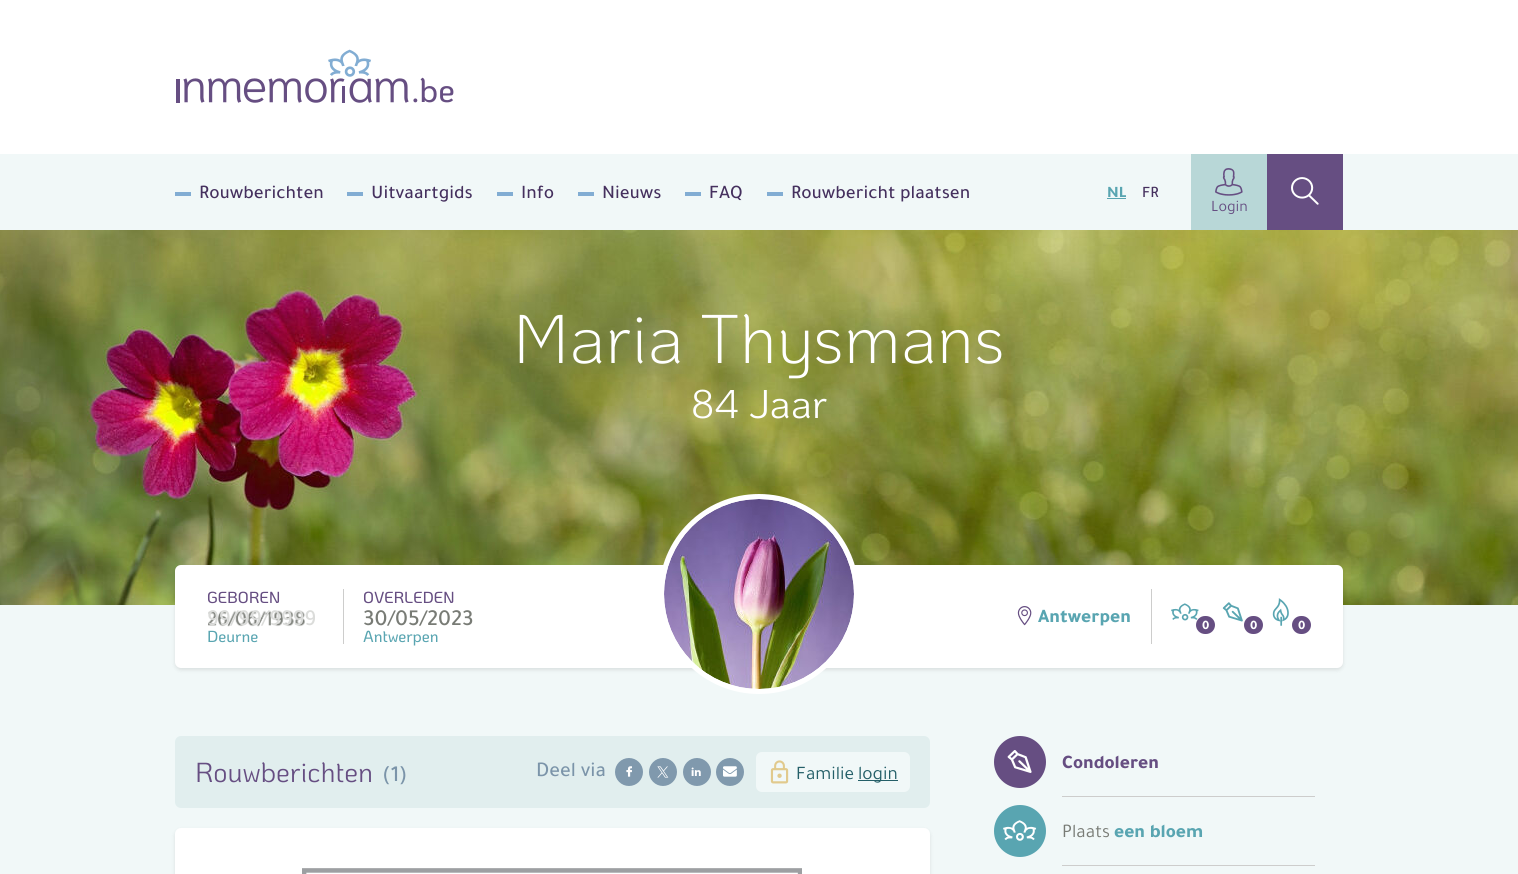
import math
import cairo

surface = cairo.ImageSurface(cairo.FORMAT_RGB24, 1518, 874)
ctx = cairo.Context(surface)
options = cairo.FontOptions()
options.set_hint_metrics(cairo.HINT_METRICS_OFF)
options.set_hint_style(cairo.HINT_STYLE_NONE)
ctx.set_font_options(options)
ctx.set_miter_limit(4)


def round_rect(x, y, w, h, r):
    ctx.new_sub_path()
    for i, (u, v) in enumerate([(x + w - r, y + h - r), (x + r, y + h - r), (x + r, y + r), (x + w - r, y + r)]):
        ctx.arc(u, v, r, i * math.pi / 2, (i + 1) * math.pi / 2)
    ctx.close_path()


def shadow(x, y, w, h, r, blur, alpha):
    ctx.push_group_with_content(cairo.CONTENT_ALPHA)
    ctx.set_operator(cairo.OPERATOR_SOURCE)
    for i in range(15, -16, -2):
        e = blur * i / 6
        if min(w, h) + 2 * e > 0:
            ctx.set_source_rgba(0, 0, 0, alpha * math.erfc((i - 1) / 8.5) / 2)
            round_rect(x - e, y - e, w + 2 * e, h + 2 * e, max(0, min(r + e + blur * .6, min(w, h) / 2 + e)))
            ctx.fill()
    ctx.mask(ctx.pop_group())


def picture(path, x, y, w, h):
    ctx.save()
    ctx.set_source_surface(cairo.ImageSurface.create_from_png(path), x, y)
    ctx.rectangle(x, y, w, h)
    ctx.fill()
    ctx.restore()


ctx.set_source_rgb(0.945, 0.969, 0.969)
ctx.paint()
ctx.set_source_rgb(1, 1, 1)
ctx.rectangle(0, 0, 1518, 154)
ctx.fill()
picture("img1.png", 176, 49, 278, 54)
ctx.set_source_rgb(0.51, 0.678, 0.827)
ctx.rectangle(175, 192, 16, 4)
ctx.fill()
ctx.select_font_face("Tajawal Medium")
ctx.set_font_size(19.25)
ctx.set_source_rgb(0.271, 0.188, 0.369)
ctx.move_to(199, 198)
ctx.show_text("Rouwberichten")
ctx.set_source_rgb(0.51, 0.678, 0.827)
ctx.rectangle(347, 192, 16, 4)
ctx.fill()
ctx.set_source_rgb(0.271, 0.188, 0.369)
ctx.move_to(371, 198)
ctx.show_text("Uitvaartgids")
ctx.set_source_rgb(0.51, 0.678, 0.827)
ctx.rectangle(497, 192, 16, 4)
ctx.fill()
ctx.set_source_rgb(0.271, 0.188, 0.369)
ctx.move_to(521, 198)
ctx.show_text("Info")
ctx.set_source_rgb(0.51, 0.678, 0.827)
ctx.rectangle(578, 192, 16, 4)
ctx.fill()
ctx.set_source_rgb(0.271, 0.188, 0.369)
ctx.move_to(602, 198)
ctx.show_text("Nieuws")
ctx.set_source_rgb(0.51, 0.678, 0.827)
ctx.rectangle(685, 192, 16, 4)
ctx.fill()
ctx.set_source_rgb(0.271, 0.188, 0.369)
ctx.move_to(709, 198)
ctx.show_text("FAQ")
ctx.set_source_rgb(0.51, 0.678, 0.827)
ctx.rectangle(767, 192, 16, 4)
ctx.fill()
ctx.set_source_rgb(0.271, 0.188, 0.369)
ctx.move_to(791, 198)
ctx.show_text("Rouwbericht plaatsen")
ctx.select_font_face("Tajawal ExtraBold")
ctx.set_font_size(16)
ctx.set_source_rgb(0.349, 0.647, 0.694)
ctx.move_to(1107, 197)
ctx.show_text("NL")
ctx.rectangle(1107, 198, 19, 1)
ctx.fill()
ctx.select_font_face("Tajawal Medium")
ctx.set_source_rgb(0.271, 0.188, 0.369)
ctx.move_to(1142, 197)
ctx.show_text("FR")
ctx.set_source_rgb(0.722, 0.843, 0.843)
ctx.rectangle(1191, 154, 76, 76)
ctx.fill()
picture("img2.png", 1215, 168, 28, 28)
ctx.select_font_face("Tajawal")
ctx.set_source_rgb(0.4, 0.306, 0.51)
ctx.move_to(1211, 211)
ctx.show_text("Login")
ctx.rectangle(1267, 154, 76, 76)
ctx.fill()
picture("img3.png", 1291, 177, 28, 28)
picture("img4.png", 0, 230, 1518, 375)
ctx.select_font_face("KoHo Light")
ctx.set_font_size(68.75)
ctx.set_source_rgb(1, 1, 1)
ctx.move_to(513, 363)
ctx.show_text("Maria Thysmans")
ctx.select_font_face("KoHo")
ctx.set_font_size(40)
ctx.move_to(691, 418)
ctx.show_text("84 Jaar")
ctx.set_source_rgb(0, 0, 0)
shadow(175, 567, 1168, 103, 6, 2, 0.1)
ctx.set_source_rgb(1, 1, 1)
round_rect(175, 565, 1168, 103, 6)
ctx.fill()
ctx.select_font_face("KoHo Medium")
ctx.set_font_size(16)
ctx.set_source_rgb(0.4, 0.306, 0.51)
ctx.move_to(207, 603)
ctx.show_text("GEBOREN")
picture("img5.png", 208, 610, 97, 17)
ctx.select_font_face("Tajawal Medium")
ctx.set_font_size(23)
ctx.set_source_rgb(0.859, 0.863, 0.855)
ctx.move_to(207, 625)
ctx.show_text("99/99/9999")
ctx.select_font_face("KoHo Medium")
ctx.set_font_size(16)
ctx.set_source_rgb(0.349, 0.647, 0.694)
ctx.move_to(207, 642)
ctx.show_text("Deurne")
ctx.set_source_rgb(0.804, 0.804, 0.8)
ctx.rectangle(343, 589, 1, 55)
ctx.fill()
ctx.set_source_rgb(0.4, 0.306, 0.51)
ctx.move_to(363, 603)
ctx.show_text("OVERLEDEN")
ctx.select_font_face("Tajawal Medium")
ctx.set_font_size(23)
ctx.set_source_rgb(0.471, 0.482, 0.459)
ctx.move_to(363, 625)
ctx.show_text("30/05/2023")
ctx.select_font_face("KoHo Medium")
ctx.set_font_size(16)
ctx.set_source_rgb(0.349, 0.647, 0.694)
ctx.move_to(363, 642)
ctx.show_text("Antwerpen")
ctx.set_source_rgb(1, 1, 1)
ctx.new_path()
ctx.arc(759, 594, 97.5, 0, 2 * math.pi)
ctx.fill_preserve()
ctx.set_line_width(5)
ctx.stroke()
picture("img6.png", 664, 499, 190, 190)
picture("img7.png", 1017, 606, 15, 20)
ctx.select_font_face("Tajawal ExtraBold")
ctx.set_font_size(19.25)
ctx.set_source_rgb(0.349, 0.647, 0.694)
ctx.move_to(1038, 622)
ctx.show_text("Antwerpen")
ctx.set_source_rgb(0.804, 0.804, 0.8)
ctx.rectangle(1151, 589, 1, 55)
ctx.fill()
picture("img8.png", 1171, 603, 28, 18)
ctx.set_source_rgb(0.4, 0.306, 0.51)
round_rect(1196, 616, 19, 18, 9)
ctx.fill()
ctx.set_font_size(13)
ctx.set_source_rgb(1, 1, 1)
ctx.move_to(1202, 629)
ctx.show_text("0")
picture("img9.png", 1222, 602, 21, 20)
ctx.set_source_rgb(0.4, 0.306, 0.51)
round_rect(1244, 616, 19, 18, 9)
ctx.fill()
ctx.set_source_rgb(1, 1, 1)
ctx.move_to(1250, 629)
ctx.show_text("0")
picture("img10.png", 1272, 598, 17, 28)
ctx.set_source_rgb(0.4, 0.306, 0.51)
round_rect(1292, 616, 19, 18, 9)
ctx.fill()
ctx.set_source_rgb(1, 1, 1)
ctx.move_to(1298, 629)
ctx.show_text("0")
ctx.set_source_rgb(0.882, 0.933, 0.933)
round_rect(175, 736, 755, 72, 6)
ctx.fill()
ctx.select_font_face("KoHo")
ctx.set_font_size(27.5)
ctx.set_source_rgb(0.4, 0.306, 0.51)
ctx.move_to(195, 782)
ctx.show_text("Rouwberichten")
ctx.select_font_face("Tajawal Medium")
ctx.set_font_size(23)
ctx.set_source_rgb(0.482, 0.58, 0.663)
ctx.move_to(382, 781)
ctx.show_text("(1)")
ctx.set_font_size(21)
ctx.move_to(536, 776)
ctx.show_text("Deel via")
ctx.set_source_rgb(0.502, 0.6, 0.678)
ctx.new_path()
ctx.arc(629, 772, 14, 0, 2 * math.pi)
ctx.fill()
picture("img11.png", 626, 766, 6, 11)
ctx.arc(663, 772, 14, 0, 2 * math.pi)
ctx.fill()
picture("img12.png", 657, 766, 12, 12)
ctx.arc(697, 772, 14, 0, 2 * math.pi)
ctx.fill()
picture("img13.png", 691, 767, 10, 9)
ctx.arc(730, 772, 14, 0, 2 * math.pi)
ctx.fill()
picture("img14.png", 723, 766, 14, 11)
ctx.set_source_rgb(0.945, 0.969, 0.969)
round_rect(756, 752, 154, 40, 6)
ctx.fill()
picture("img15.png", 770, 760, 19, 24)
ctx.select_font_face("Tajawal")
ctx.set_font_size(19.25)
ctx.set_source_rgb(0.141, 0.373, 0.408)
ctx.move_to(796, 779)
ctx.show_text("Familie")
ctx.rectangle(858, 780, 40, 1)
ctx.fill()
ctx.move_to(858, 779)
ctx.show_text("login")
ctx.set_source_rgb(0, 0, 0)
shadow(175, 830, 755, 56, 6, 2, 0.1)
ctx.set_source_rgb(1, 1, 1)
round_rect(175, 828, 755, 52, 6)
ctx.fill()
picture("img16.png", 302, 868, 500, 6)
ctx.set_source_rgb(0.4, 0.306, 0.51)
ctx.arc(1020, 762, 26, 0, 2 * math.pi)
ctx.fill()
picture("img17.png", 1007, 750, 25, 23)
ctx.select_font_face("Tajawal ExtraBold")
ctx.move_to(1062, 768)
ctx.show_text("Condoleren")
ctx.set_source_rgb(0.804, 0.804, 0.8)
ctx.rectangle(1062, 796, 253, 1)
ctx.fill()
ctx.set_source_rgb(0.349, 0.647, 0.694)
ctx.arc(1020, 831, 26, 0, 2 * math.pi)
ctx.fill()
picture("img18.png", 1003, 820, 34, 21)
ctx.select_font_face("Tajawal")
ctx.set_source_rgb(0.471, 0.482, 0.459)
ctx.move_to(1062, 837)
ctx.show_text("Plaats")
ctx.select_font_face("Tajawal ExtraBold")
ctx.set_source_rgb(0.349, 0.647, 0.694)
ctx.move_to(1114, 837)
ctx.show_text("een bloem")
ctx.set_source_rgb(0.804, 0.804, 0.8)
ctx.rectangle(1062, 865, 253, 1)
ctx.fill()
surface.write_to_png("page.png")
